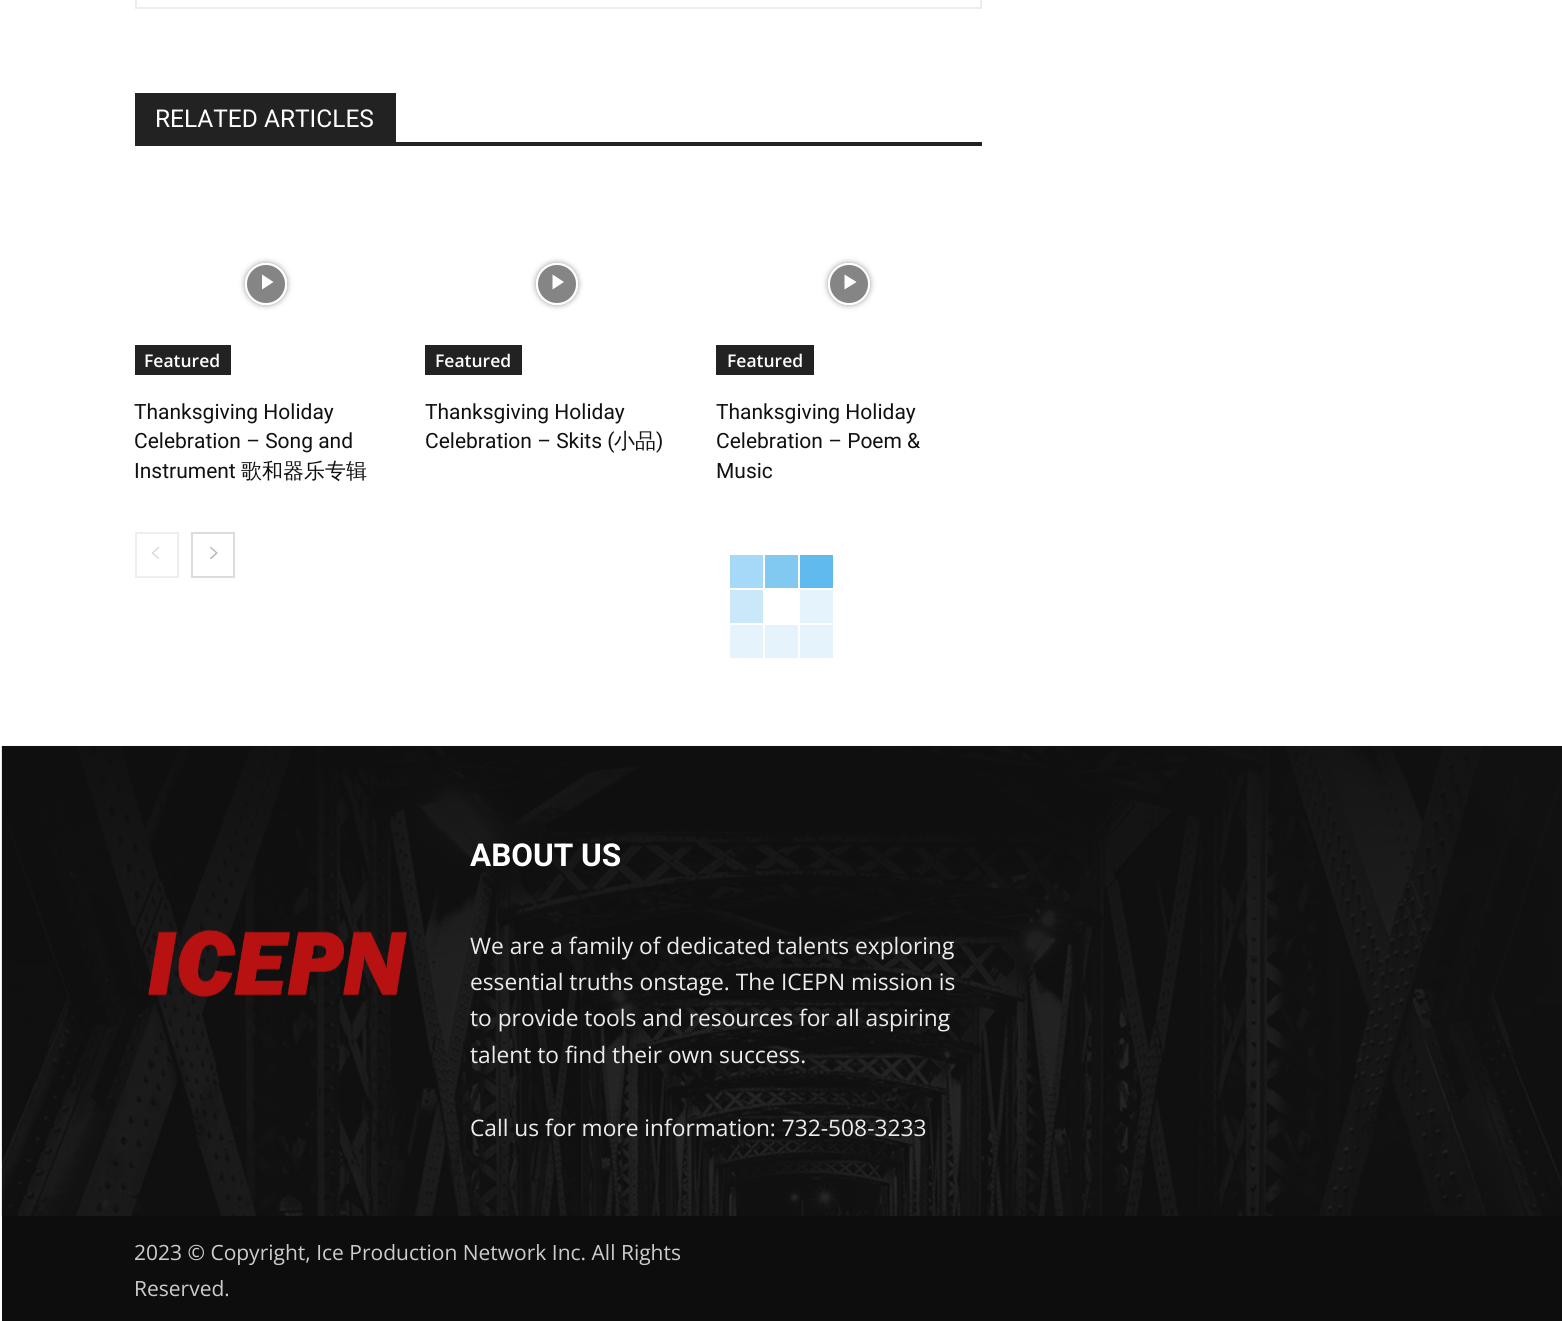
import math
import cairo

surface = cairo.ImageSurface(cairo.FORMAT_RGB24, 1562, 1321)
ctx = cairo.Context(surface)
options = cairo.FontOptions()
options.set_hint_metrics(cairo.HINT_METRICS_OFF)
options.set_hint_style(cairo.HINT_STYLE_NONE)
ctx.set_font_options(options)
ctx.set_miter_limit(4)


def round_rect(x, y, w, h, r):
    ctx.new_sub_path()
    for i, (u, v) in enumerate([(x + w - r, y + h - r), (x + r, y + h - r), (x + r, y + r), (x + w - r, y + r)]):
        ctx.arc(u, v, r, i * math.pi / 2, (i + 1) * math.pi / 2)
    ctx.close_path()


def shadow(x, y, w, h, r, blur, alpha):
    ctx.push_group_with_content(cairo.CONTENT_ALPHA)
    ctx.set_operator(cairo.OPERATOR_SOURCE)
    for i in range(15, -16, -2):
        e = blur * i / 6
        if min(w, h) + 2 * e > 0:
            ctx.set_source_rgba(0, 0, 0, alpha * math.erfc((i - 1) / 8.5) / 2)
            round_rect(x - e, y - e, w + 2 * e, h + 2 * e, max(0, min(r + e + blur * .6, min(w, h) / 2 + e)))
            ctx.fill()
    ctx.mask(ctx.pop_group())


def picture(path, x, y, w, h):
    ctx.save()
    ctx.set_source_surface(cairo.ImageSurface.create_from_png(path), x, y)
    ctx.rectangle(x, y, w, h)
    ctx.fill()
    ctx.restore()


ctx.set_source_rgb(1, 1, 1)
ctx.paint()
ctx.rectangle(136, -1, 845, 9)
ctx.set_source_rgb(0.929, 0.929, 0.929)
ctx.stroke()
ctx.set_source_rgb(0.133, 0.133, 0.133)
ctx.rectangle(135, 142, 847, 4)
ctx.fill()
ctx.rectangle(135, 93, 261, 49)
ctx.fill()
ctx.select_font_face("Roboto")
ctx.set_font_size(24.5)
ctx.set_source_rgb(1, 1, 1)
ctx.move_to(155, 127)
ctx.show_text("RELATED ARTICLES")
ctx.save()
ctx.set_fill_rule(cairo.FILL_RULE_EVEN_ODD)
ctx.new_path()
ctx.move_to(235, 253)
ctx.line_to(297, 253)
ctx.line_to(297, 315)
ctx.line_to(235, 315)
ctx.close_path()
ctx.move_to(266, 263)
ctx.curve_to(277.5, 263, 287, 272.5, 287, 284)
ctx.curve_to(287, 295.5, 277.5, 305, 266, 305)
ctx.curve_to(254.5, 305, 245, 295.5, 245, 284)
ctx.curve_to(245, 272.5, 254.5, 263, 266, 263)
ctx.close_path()
ctx.clip()
ctx.set_source_rgb(0, 0, 0)
shadow(245, 263, 42, 42, 21, 3, 0.4)
ctx.restore()
ctx.set_source_rgba(0, 0, 0, 0.48)
ctx.arc(266, 284, 20, 0, 2 * math.pi)
ctx.fill_preserve()
ctx.set_source_rgb(1, 1, 1)
ctx.stroke()
ctx.new_path()
ctx.move_to(262, 274.5)
ctx.line_to(262, 289.5)
ctx.line_to(273.5, 282)
ctx.close_path()
ctx.fill()
ctx.set_source_rgb(0.133, 0.133, 0.133)
ctx.rectangle(135, 345, 96, 30)
ctx.fill()
ctx.select_font_face("Open Sans SemiBold")
ctx.set_font_size(17.5)
ctx.set_source_rgb(1, 1, 1)
ctx.move_to(144, 367)
ctx.show_text("Featured")
ctx.select_font_face("Roboto")
ctx.set_font_size(21)
ctx.set_source_rgb(0.067, 0.067, 0.067)
ctx.move_to(134, 419)
ctx.show_text("Thanksgiving Holiday")
ctx.move_to(134, 448)
ctx.show_text("Celebration – Song and")
ctx.move_to(134, 478)
ctx.show_text("Instrument")
ctx.select_font_face("WenQuanYi Zen Hei Medium")
ctx.move_to(241, 478)
ctx.show_text("歌和器乐专辑")
ctx.save()
ctx.set_fill_rule(cairo.FILL_RULE_EVEN_ODD)
ctx.new_path()
ctx.move_to(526, 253)
ctx.line_to(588, 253)
ctx.line_to(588, 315)
ctx.line_to(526, 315)
ctx.close_path()
ctx.move_to(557, 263)
ctx.curve_to(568.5, 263, 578, 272.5, 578, 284)
ctx.curve_to(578, 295.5, 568.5, 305, 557, 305)
ctx.curve_to(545.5, 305, 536, 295.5, 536, 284)
ctx.curve_to(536, 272.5, 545.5, 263, 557, 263)
ctx.close_path()
ctx.clip()
ctx.set_source_rgb(0, 0, 0)
shadow(536, 263, 42, 42, 21, 3, 0.4)
ctx.restore()
ctx.set_source_rgba(0, 0, 0, 0.48)
ctx.arc(557, 284, 20, 0, 2 * math.pi)
ctx.fill_preserve()
ctx.set_source_rgb(1, 1, 1)
ctx.stroke()
ctx.new_path()
ctx.move_to(552.5, 274.5)
ctx.line_to(552.5, 289.5)
ctx.line_to(564, 282)
ctx.close_path()
ctx.fill()
ctx.set_source_rgb(0.133, 0.133, 0.133)
ctx.rectangle(425, 345, 97, 30)
ctx.fill()
ctx.select_font_face("Open Sans SemiBold")
ctx.set_font_size(17.5)
ctx.set_source_rgb(1, 1, 1)
ctx.move_to(435, 367)
ctx.show_text("Featured")
ctx.select_font_face("Roboto")
ctx.set_font_size(21)
ctx.set_source_rgb(0.067, 0.067, 0.067)
ctx.move_to(425, 419)
ctx.show_text("Thanksgiving Holiday")
ctx.move_to(425, 448)
ctx.show_text("Celebration – Skits (")
ctx.select_font_face("WenQuanYi Zen Hei Medium")
ctx.move_to(614, 448)
ctx.show_text("小品")
ctx.select_font_face("Roboto")
ctx.move_to(656, 448)
ctx.show_text(")")
ctx.save()
ctx.set_fill_rule(cairo.FILL_RULE_EVEN_ODD)
ctx.new_path()
ctx.move_to(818, 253)
ctx.line_to(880, 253)
ctx.line_to(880, 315)
ctx.line_to(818, 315)
ctx.close_path()
ctx.move_to(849, 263)
ctx.curve_to(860.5, 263, 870, 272.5, 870, 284)
ctx.curve_to(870, 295.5, 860.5, 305, 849, 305)
ctx.curve_to(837.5, 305, 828, 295.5, 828, 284)
ctx.curve_to(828, 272.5, 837.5, 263, 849, 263)
ctx.close_path()
ctx.clip()
ctx.set_source_rgb(0, 0, 0)
shadow(828, 263, 42, 42, 21, 3, 0.4)
ctx.restore()
ctx.set_source_rgba(0, 0, 0, 0.48)
ctx.arc(849, 284, 20, 0, 2 * math.pi)
ctx.fill_preserve()
ctx.set_source_rgb(1, 1, 1)
ctx.stroke()
ctx.new_path()
ctx.move_to(844.5, 274.5)
ctx.line_to(844.5, 289.5)
ctx.line_to(856.5, 282)
ctx.close_path()
ctx.fill()
ctx.set_source_rgb(0.133, 0.133, 0.133)
ctx.rectangle(716, 345, 98, 30)
ctx.fill()
ctx.select_font_face("Open Sans SemiBold")
ctx.set_font_size(17.5)
ctx.set_source_rgb(1, 1, 1)
ctx.move_to(727, 367)
ctx.show_text("Featured")
ctx.select_font_face("Roboto")
ctx.set_font_size(21)
ctx.set_source_rgb(0.067, 0.067, 0.067)
ctx.move_to(716, 419)
ctx.show_text("Thanksgiving Holiday")
ctx.move_to(716, 448)
ctx.show_text("Celebration – Poem &")
ctx.move_to(716, 478)
ctx.show_text("Music")
ctx.rectangle(136, 533, 42, 44)
ctx.set_source_rgb(0.933, 0.933, 0.933)
ctx.stroke()
picture("img1.png", 151, 547, 9, 12)
ctx.rectangle(192, 533, 42, 44)
ctx.set_source_rgb(0.863, 0.863, 0.863)
ctx.stroke()
picture("img2.png", 210, 547, 8, 13)
ctx.set_source_rgb(0.651, 0.851, 0.965)
ctx.rectangle(730, 555, 33, 33)
ctx.fill()
ctx.set_source_rgb(0.51, 0.788, 0.949)
ctx.rectangle(765, 555, 33, 33)
ctx.fill()
ctx.set_source_rgb(0.373, 0.729, 0.933)
ctx.rectangle(800, 555, 33, 33)
ctx.fill()
ctx.set_source_rgb(0.792, 0.91, 0.976)
ctx.rectangle(730, 590, 33, 33)
ctx.fill()
ctx.set_source_rgb(0.894, 0.953, 0.988)
ctx.rectangle(800, 590, 33, 33)
ctx.fill()
ctx.rectangle(730, 625, 33, 33)
ctx.fill()
ctx.rectangle(765, 625, 33, 33)
ctx.fill()
ctx.rectangle(800, 625, 33, 33)
ctx.fill()
ctx.set_source_rgb(0.067, 0.067, 0.067)
ctx.rectangle(2, 746, 1560, 470)
ctx.fill()
picture("img3.png", 1, 745, 1561, 471)
picture("img4.png", 148, 929, 259, 68)
ctx.select_font_face("Roboto", cairo.FONT_SLANT_NORMAL, cairo.FONT_WEIGHT_BOLD)
ctx.set_font_size(31.5)
ctx.set_source_rgb(1, 1, 1)
ctx.move_to(470, 866)
ctx.show_text("ABOUT US")
ctx.select_font_face("Open Sans")
ctx.set_font_size(22.75)
ctx.set_source_rgb(0.918, 0.918, 0.918)
ctx.move_to(470, 954)
ctx.show_text("We are a family of dedicated talents exploring")
ctx.move_to(470, 990)
ctx.show_text("essential truths onstage. The ICEPN mission is")
ctx.move_to(470, 1026)
ctx.show_text("to provide tools and resources for all aspiring")
ctx.move_to(470, 1063)
ctx.show_text("talent to find their own success.")
ctx.move_to(470, 1136)
ctx.show_text("Call us for more information: 732-508-3233")
ctx.set_source_rgb(0.051, 0.051, 0.051)
ctx.rectangle(2, 1216, 1560, 105)
ctx.fill()
ctx.set_font_size(21)
ctx.set_source_rgb(0.8, 0.8, 0.8)
ctx.move_to(134, 1260)
ctx.show_text("2023 © Copyright, Ice Production Network Inc. All Rights")
ctx.move_to(134, 1296)
ctx.show_text("Reserved.")
surface.write_to_png("page.png")
